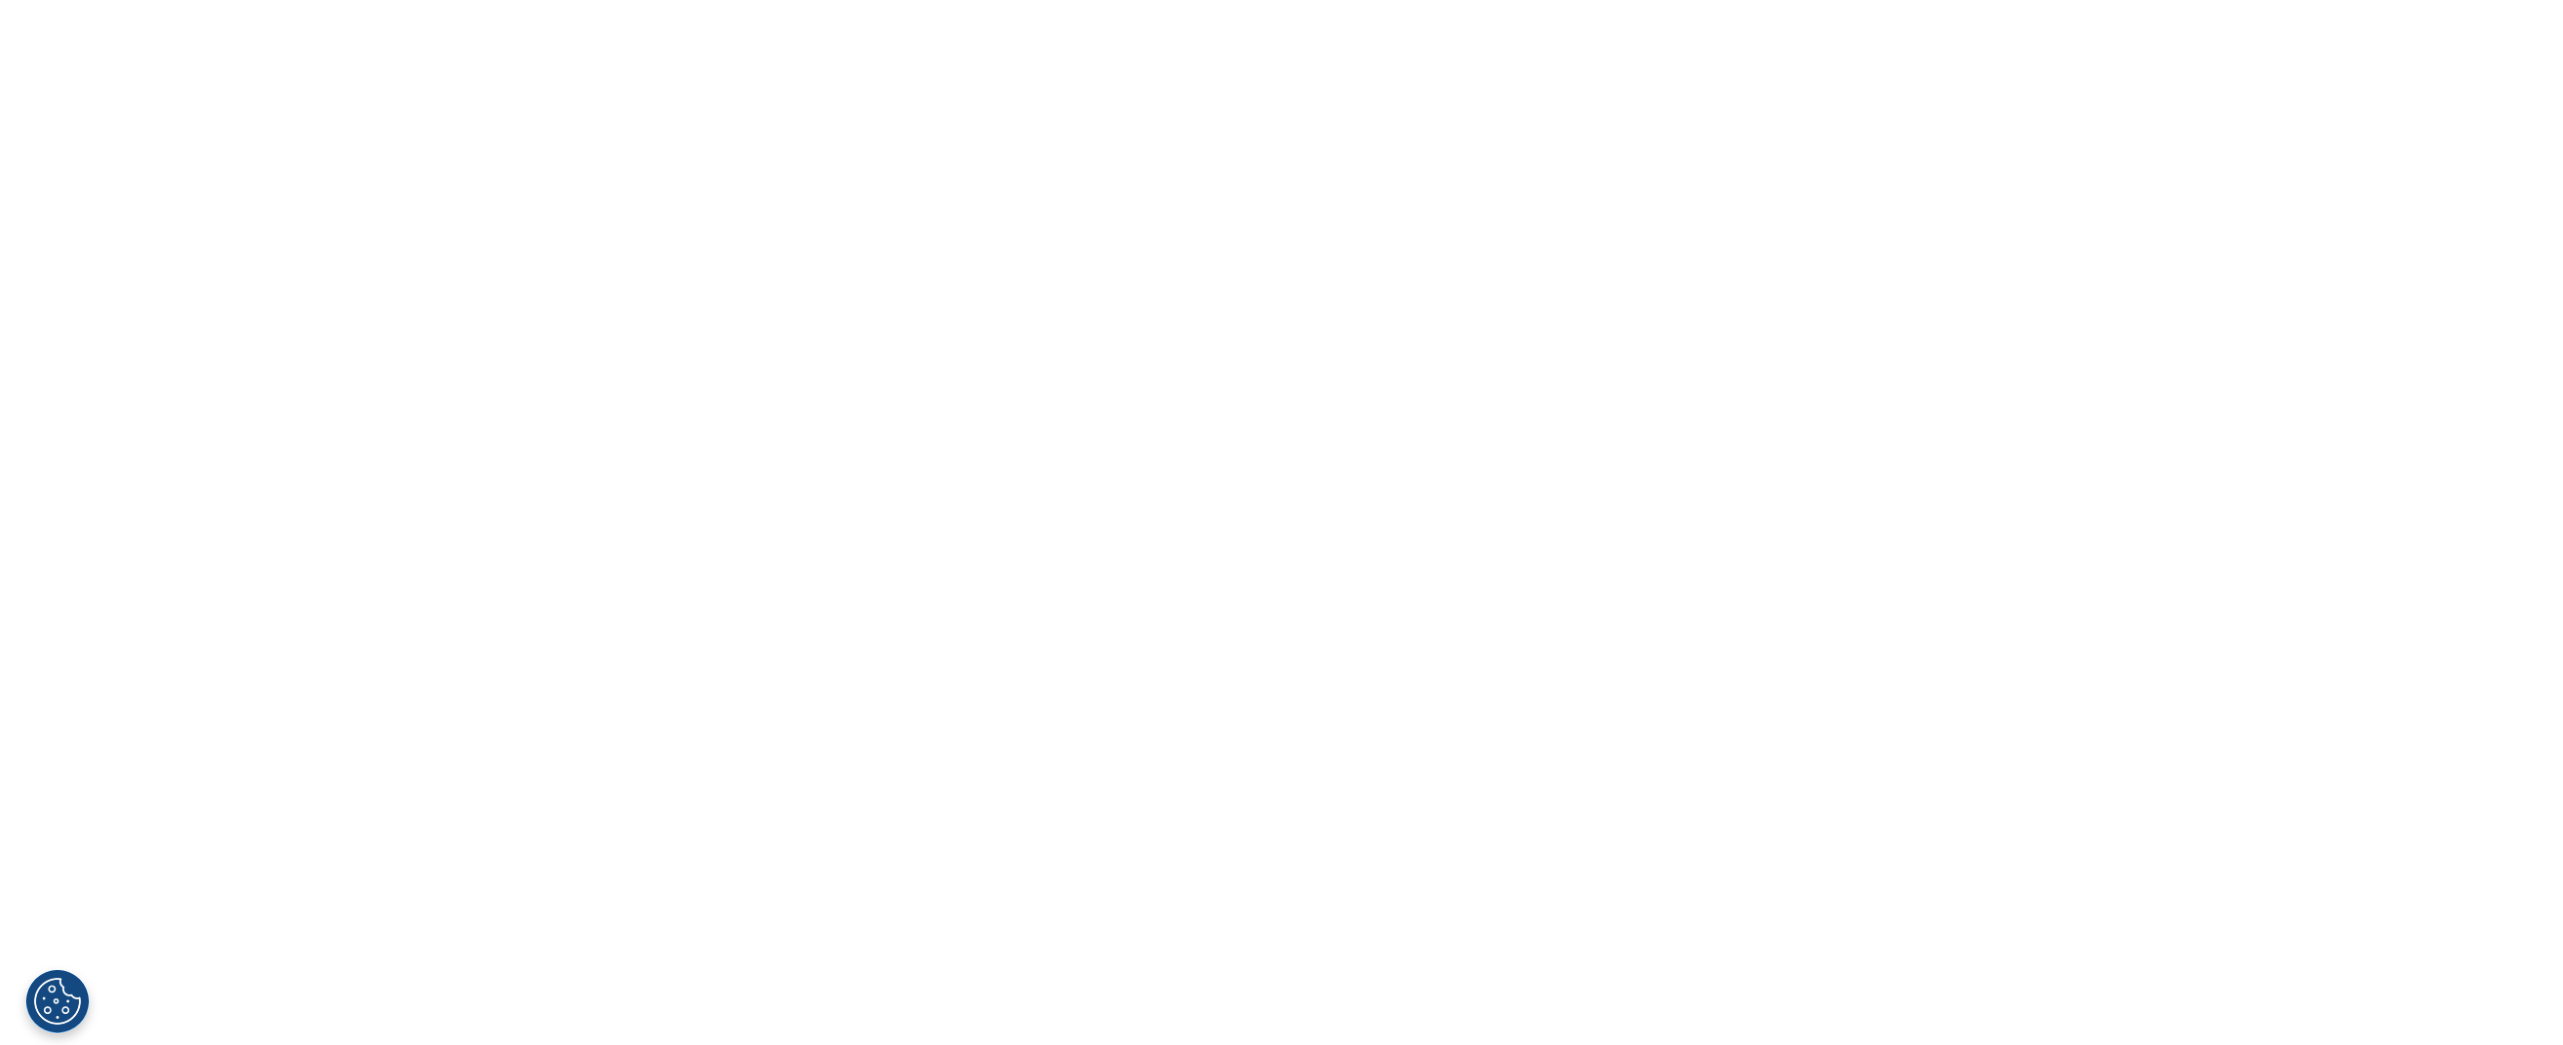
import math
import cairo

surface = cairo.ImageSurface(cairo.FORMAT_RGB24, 2563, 1045)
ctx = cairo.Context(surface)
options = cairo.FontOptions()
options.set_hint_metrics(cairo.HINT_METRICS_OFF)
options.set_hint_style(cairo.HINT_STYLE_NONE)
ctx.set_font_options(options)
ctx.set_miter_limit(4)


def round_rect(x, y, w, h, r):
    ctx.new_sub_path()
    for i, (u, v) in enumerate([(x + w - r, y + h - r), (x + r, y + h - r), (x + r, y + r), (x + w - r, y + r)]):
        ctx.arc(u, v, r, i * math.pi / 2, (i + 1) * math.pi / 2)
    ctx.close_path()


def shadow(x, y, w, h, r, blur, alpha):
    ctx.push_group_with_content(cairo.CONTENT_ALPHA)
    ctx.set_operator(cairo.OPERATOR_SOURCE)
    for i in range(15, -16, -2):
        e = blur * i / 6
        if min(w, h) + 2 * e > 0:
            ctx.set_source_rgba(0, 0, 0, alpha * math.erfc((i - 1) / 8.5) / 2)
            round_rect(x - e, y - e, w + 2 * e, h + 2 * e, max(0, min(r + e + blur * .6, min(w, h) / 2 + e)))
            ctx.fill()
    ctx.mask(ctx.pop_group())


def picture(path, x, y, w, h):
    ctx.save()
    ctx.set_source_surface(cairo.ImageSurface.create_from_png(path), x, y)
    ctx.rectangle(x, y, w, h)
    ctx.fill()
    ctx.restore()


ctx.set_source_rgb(1, 1, 1)
ctx.paint()
ctx.set_source_rgb(0, 0, 0)
shadow(26, 975, 63, 63, 31.5, 5, 0.2)
ctx.set_source_rgb(0.416, 0.667, 0.894)
ctx.arc(57.5, 1001.5, 31.5, 0, 2 * math.pi)
ctx.fill()
picture("img1.png", 26, 970, 63, 63)
surface.write_to_png("page.png")
